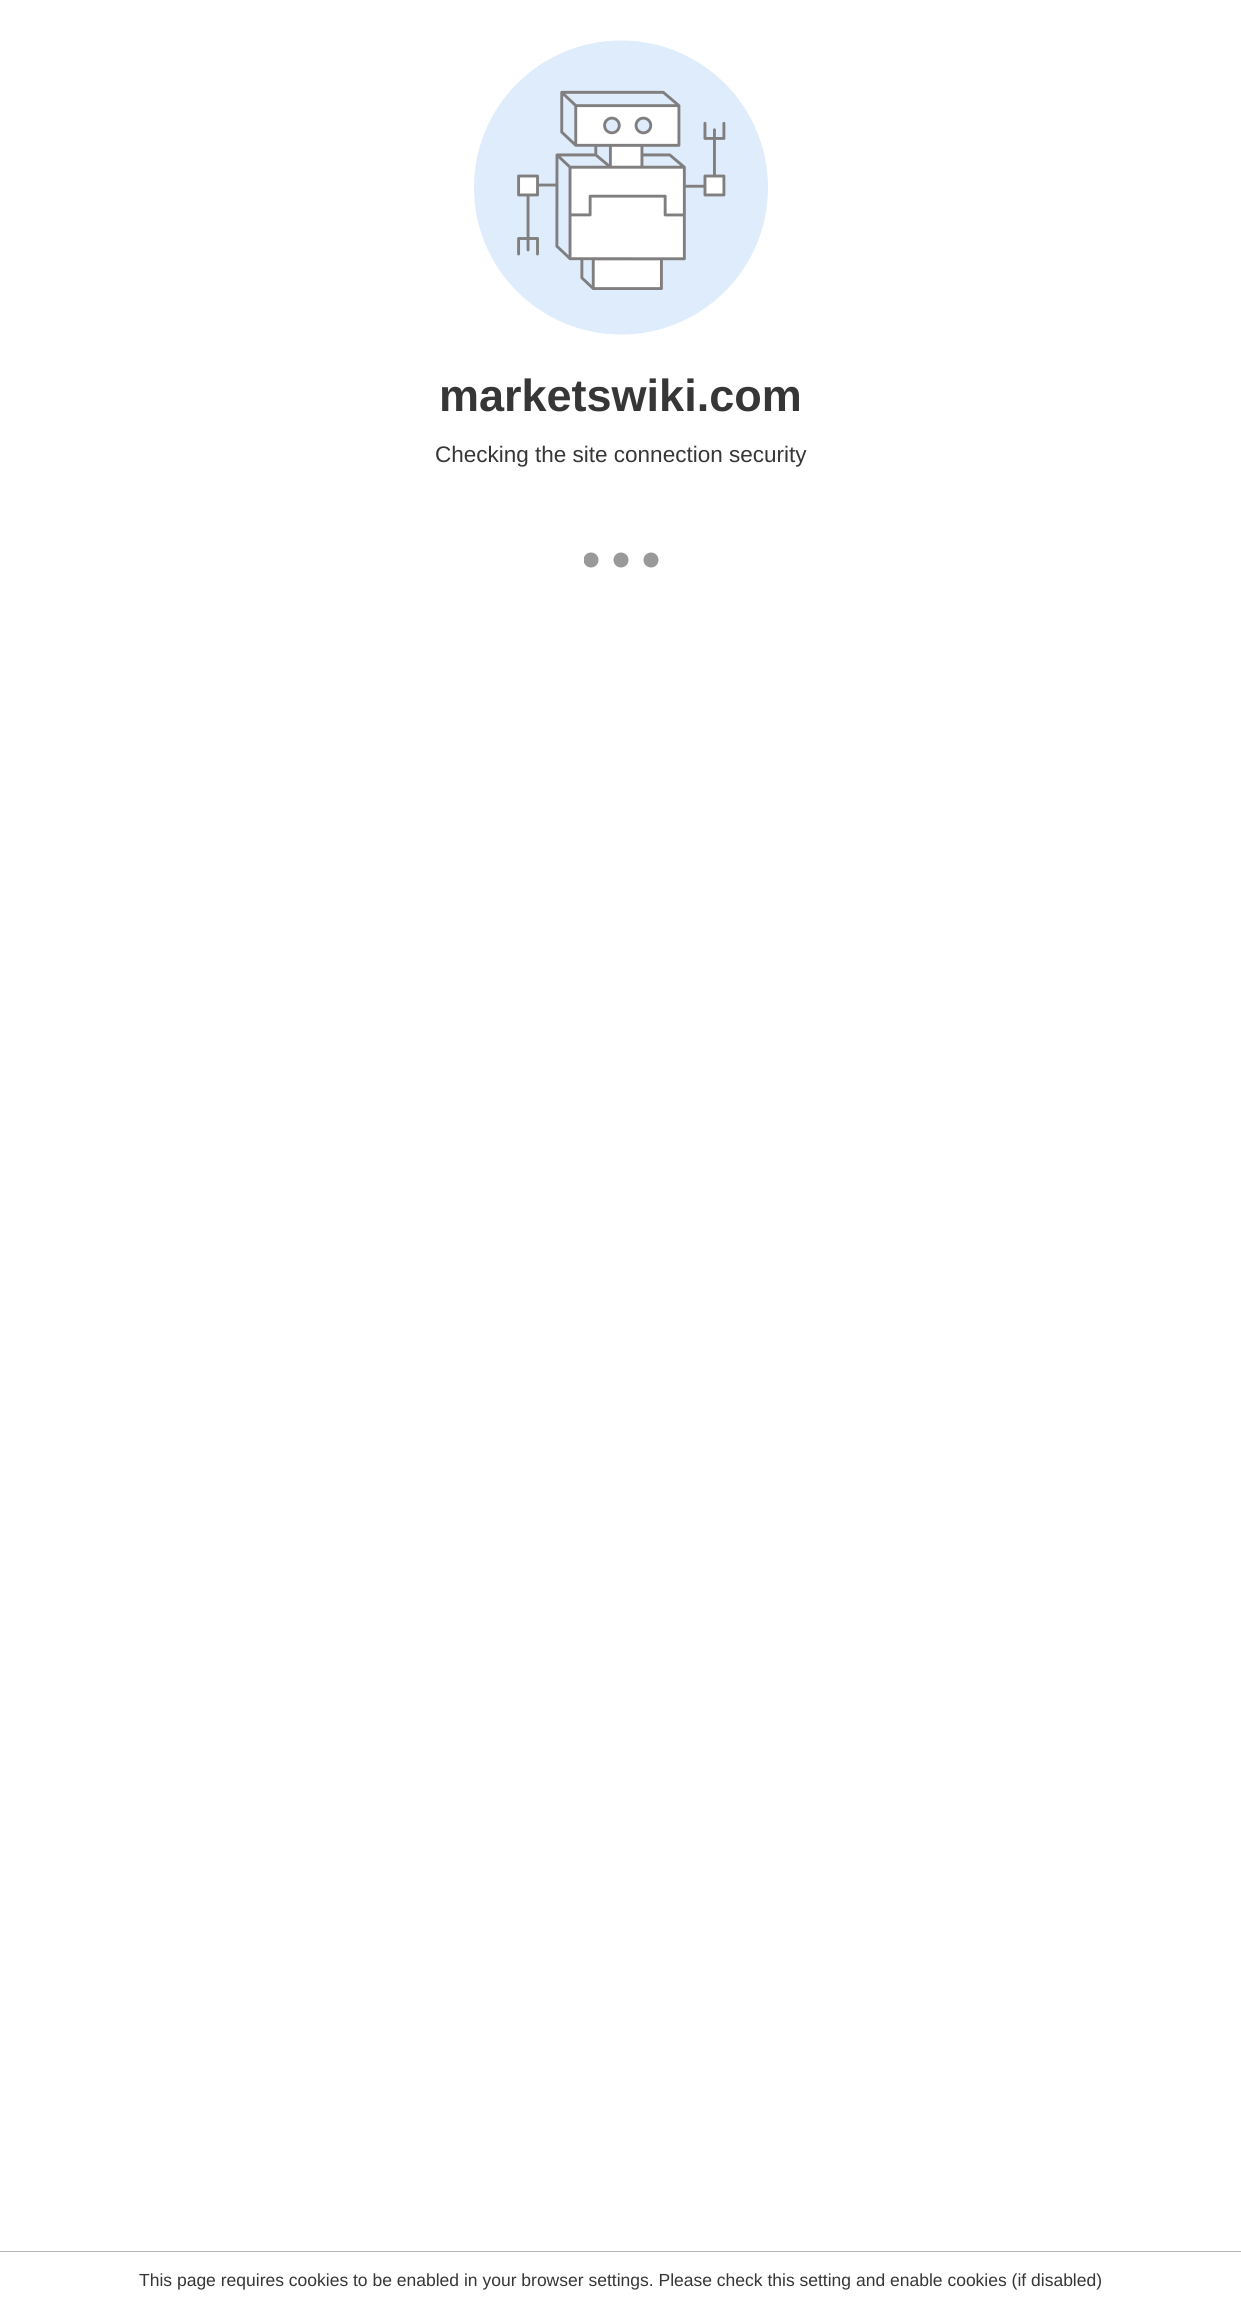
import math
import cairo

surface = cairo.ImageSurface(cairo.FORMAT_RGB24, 1241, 2307)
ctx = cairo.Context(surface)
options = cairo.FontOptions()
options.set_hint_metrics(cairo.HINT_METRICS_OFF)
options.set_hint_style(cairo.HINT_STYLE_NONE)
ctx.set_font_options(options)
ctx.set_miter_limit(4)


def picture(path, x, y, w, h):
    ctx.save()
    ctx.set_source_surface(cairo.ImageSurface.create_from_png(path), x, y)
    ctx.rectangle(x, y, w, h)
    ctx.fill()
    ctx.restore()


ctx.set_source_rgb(1, 1, 1)
ctx.paint()
picture("img1.png", 474, 40, 294, 295)
ctx.select_font_face("Liberation Sans", cairo.FONT_SLANT_NORMAL, cairo.FONT_WEIGHT_BOLD)
ctx.set_font_size(45)
ctx.set_source_rgb(0.212, 0.212, 0.212)
ctx.move_to(439, 411)
ctx.show_text("marketswiki.com")
ctx.select_font_face("Liberation Sans")
ctx.set_font_size(22.5)
ctx.move_to(435, 462)
ctx.show_text("Checking the site connection security")
ctx.save()
ctx.rectangle(584, 498, 125, 125)
ctx.clip()
ctx.set_source_rgb(0.6, 0.6, 0.6)
ctx.arc(591, 560, 7.5, 0, 2 * math.pi)
ctx.fill()
ctx.restore()
ctx.set_source_rgb(0.6, 0.6, 0.6)
ctx.arc(621, 560, 7.5, 0, 2 * math.pi)
ctx.fill()
ctx.arc(651, 560, 7.5, 0, 2 * math.pi)
ctx.fill()
ctx.set_source_rgb(0.718, 0.718, 0.718)
ctx.rectangle(0, 2251, 1241, 1)
ctx.fill()
ctx.set_font_size(17.5)
ctx.set_source_rgb(0.212, 0.212, 0.212)
ctx.move_to(139, 2286)
ctx.show_text("This page requires cookies to be enabled in your browser settings. Please check this setting and enable cookies (if disabled)")
surface.write_to_png("page.png")
